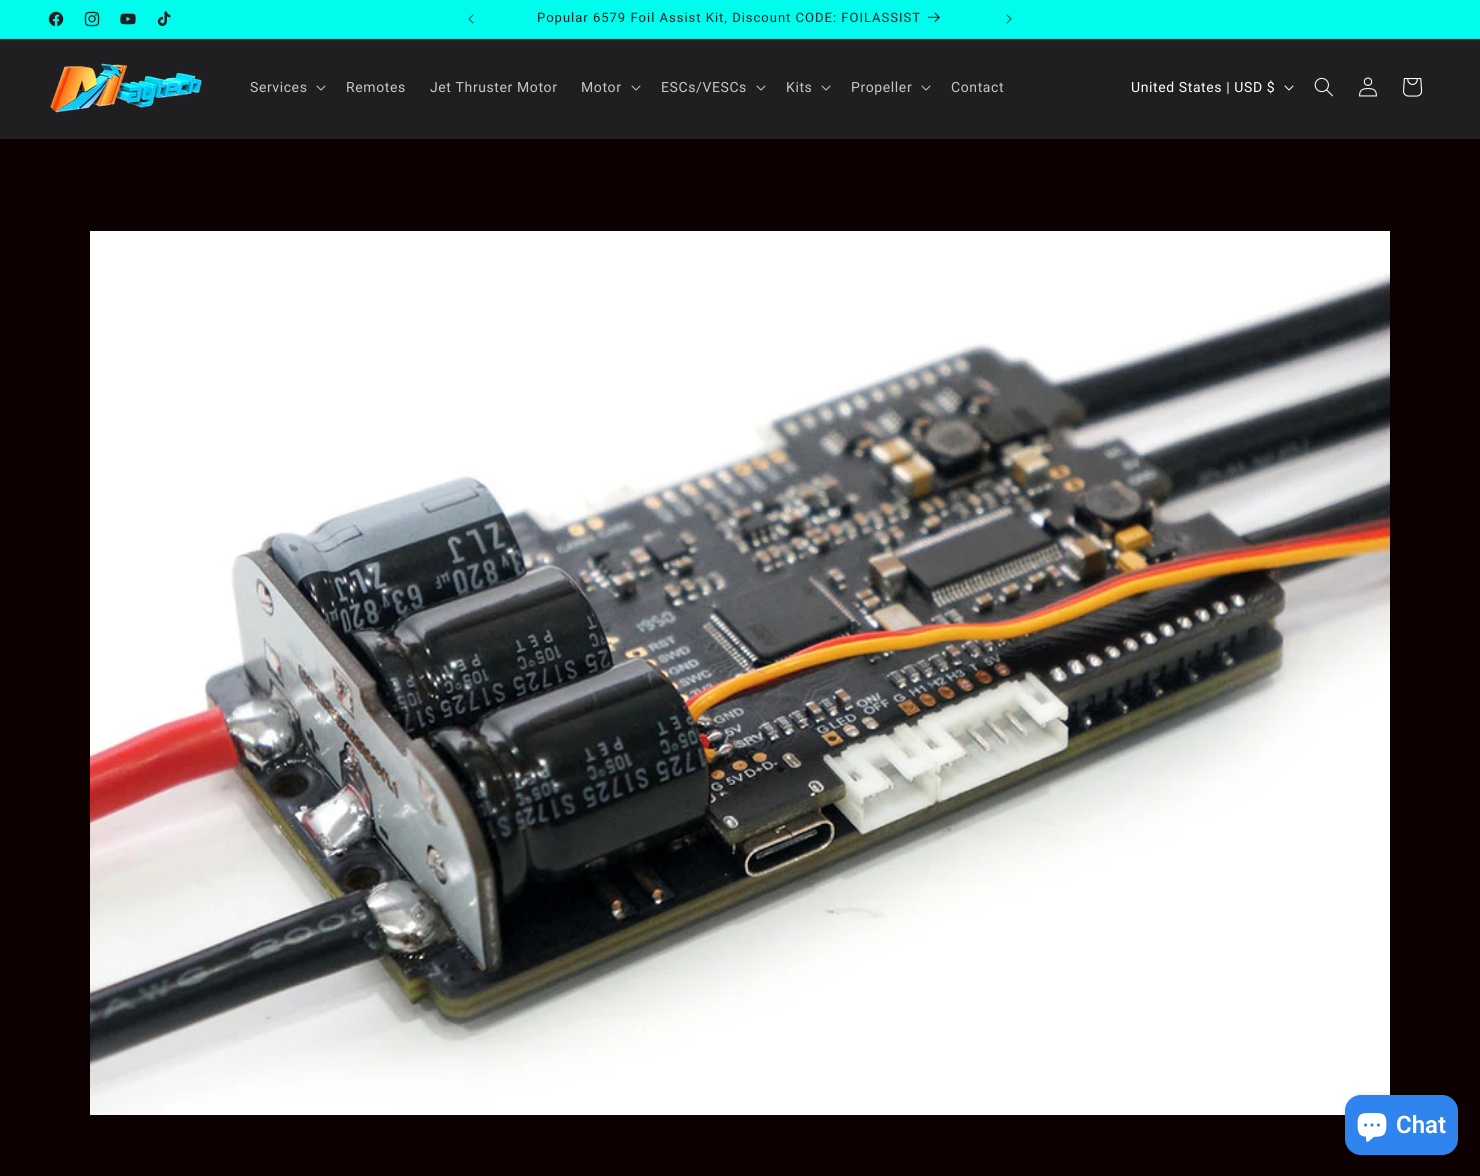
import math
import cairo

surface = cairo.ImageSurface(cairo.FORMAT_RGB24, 1480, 1176)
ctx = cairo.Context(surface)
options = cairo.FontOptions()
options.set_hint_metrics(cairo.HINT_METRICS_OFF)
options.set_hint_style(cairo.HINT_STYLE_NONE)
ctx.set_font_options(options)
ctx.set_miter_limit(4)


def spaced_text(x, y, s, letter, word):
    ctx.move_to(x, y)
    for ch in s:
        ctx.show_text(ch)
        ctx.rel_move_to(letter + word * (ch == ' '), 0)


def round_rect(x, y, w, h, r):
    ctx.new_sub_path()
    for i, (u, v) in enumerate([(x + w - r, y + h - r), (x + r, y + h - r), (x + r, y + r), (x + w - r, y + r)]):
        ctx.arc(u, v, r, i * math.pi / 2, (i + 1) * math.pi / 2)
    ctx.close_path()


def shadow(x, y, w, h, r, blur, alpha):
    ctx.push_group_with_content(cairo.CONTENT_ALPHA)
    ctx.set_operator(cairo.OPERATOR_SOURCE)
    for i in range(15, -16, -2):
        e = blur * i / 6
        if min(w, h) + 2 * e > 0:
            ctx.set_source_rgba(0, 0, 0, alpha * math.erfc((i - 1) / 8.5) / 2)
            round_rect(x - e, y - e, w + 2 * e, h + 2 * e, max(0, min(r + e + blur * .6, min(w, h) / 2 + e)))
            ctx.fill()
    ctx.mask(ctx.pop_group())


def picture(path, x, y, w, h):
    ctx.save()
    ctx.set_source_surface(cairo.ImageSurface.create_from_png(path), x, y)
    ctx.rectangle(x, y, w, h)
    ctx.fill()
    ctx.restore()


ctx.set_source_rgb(0.051, 0, 0)
ctx.paint()
ctx.set_source_rgb(0, 0.988, 0.929)
ctx.rectangle(0, 0, 1480, 38)
ctx.fill()
ctx.set_source_rgb(0.008, 0.918, 0.867)
ctx.rectangle(0, 38, 1480, 1)
ctx.fill()
picture("img1.png", 48, 11, 16, 16)
picture("img2.png", 84, 11, 16, 16)
picture("img3.png", 120, 13, 16, 12)
picture("img4.png", 157, 11, 14, 15)
picture("img5.png", 468, 14, 6, 10)
ctx.select_font_face("Roboto")
ctx.set_font_size(13)
ctx.set_source_rgb(0.122, 0.122, 0.129)
spaced_text(537, 22, "Popular 6579 Foil Assist Kit, Discount CODE: FOILASSIST", 1, 0)
picture("img6.png", 928, 12, 12, 11)
picture("img7.png", 1006, 14, 6, 10)
ctx.rectangle(0, 39, 1480, 100)
ctx.fill()
picture("img8.png", 50, 63, 152, 50)
ctx.set_font_size(14)
ctx.set_source_rgb(0.78, 0.78, 0.784)
spaced_text(250, 92, "Services", 0.6, 0)
picture("img9.png", 316, 85, 10, 6)
spaced_text(346, 92, "Remotes", 0.6, 0)
spaced_text(430, 92, "Jet Thruster Motor", 0.6, 0)
spaced_text(581, 92, "Motor", 0.6, 0)
picture("img9.png", 631, 85, 10, 6)
spaced_text(661, 92, "ESCs/VESCs", 0.6, 0)
picture("img9.png", 756, 85, 10, 6)
spaced_text(786, 92, "Kits", 0.6, 0)
picture("img9.png", 821, 85, 10, 6)
spaced_text(851, 92, "Propeller", 0.6, 0)
picture("img9.png", 921, 85, 10, 6)
spaced_text(951, 92, "Contact", 0.6, 0)
ctx.set_source_rgb(1, 1, 1)
spaced_text(1131, 92, "United States | USD $", 0.6, 0)
picture("img10.png", 1284, 85, 10, 6)
picture("img11.png", 1314, 77, 19, 20)
picture("img12.png", 1359, 77, 18, 20)
picture("img13.png", 1403, 78, 20, 19)
picture("img14.png", 90, 231, 1300, 884)
ctx.set_source_rgb(0, 0, 0)
shadow(1345, 1095, 113, 60, 16, 2.5, 0.15)
ctx.set_source_rgb(0.184, 0.522, 0.929)
round_rect(1345, 1095, 113, 60, 16)
ctx.fill()
picture("img15.png", 1357, 1113, 30, 29)
ctx.select_font_face("Roboto SemiBold")
ctx.set_font_size(24)
ctx.set_source_rgb(1, 1, 1)
ctx.move_to(1396, 1133)
ctx.show_text("Chat")
surface.write_to_png("page.png")
